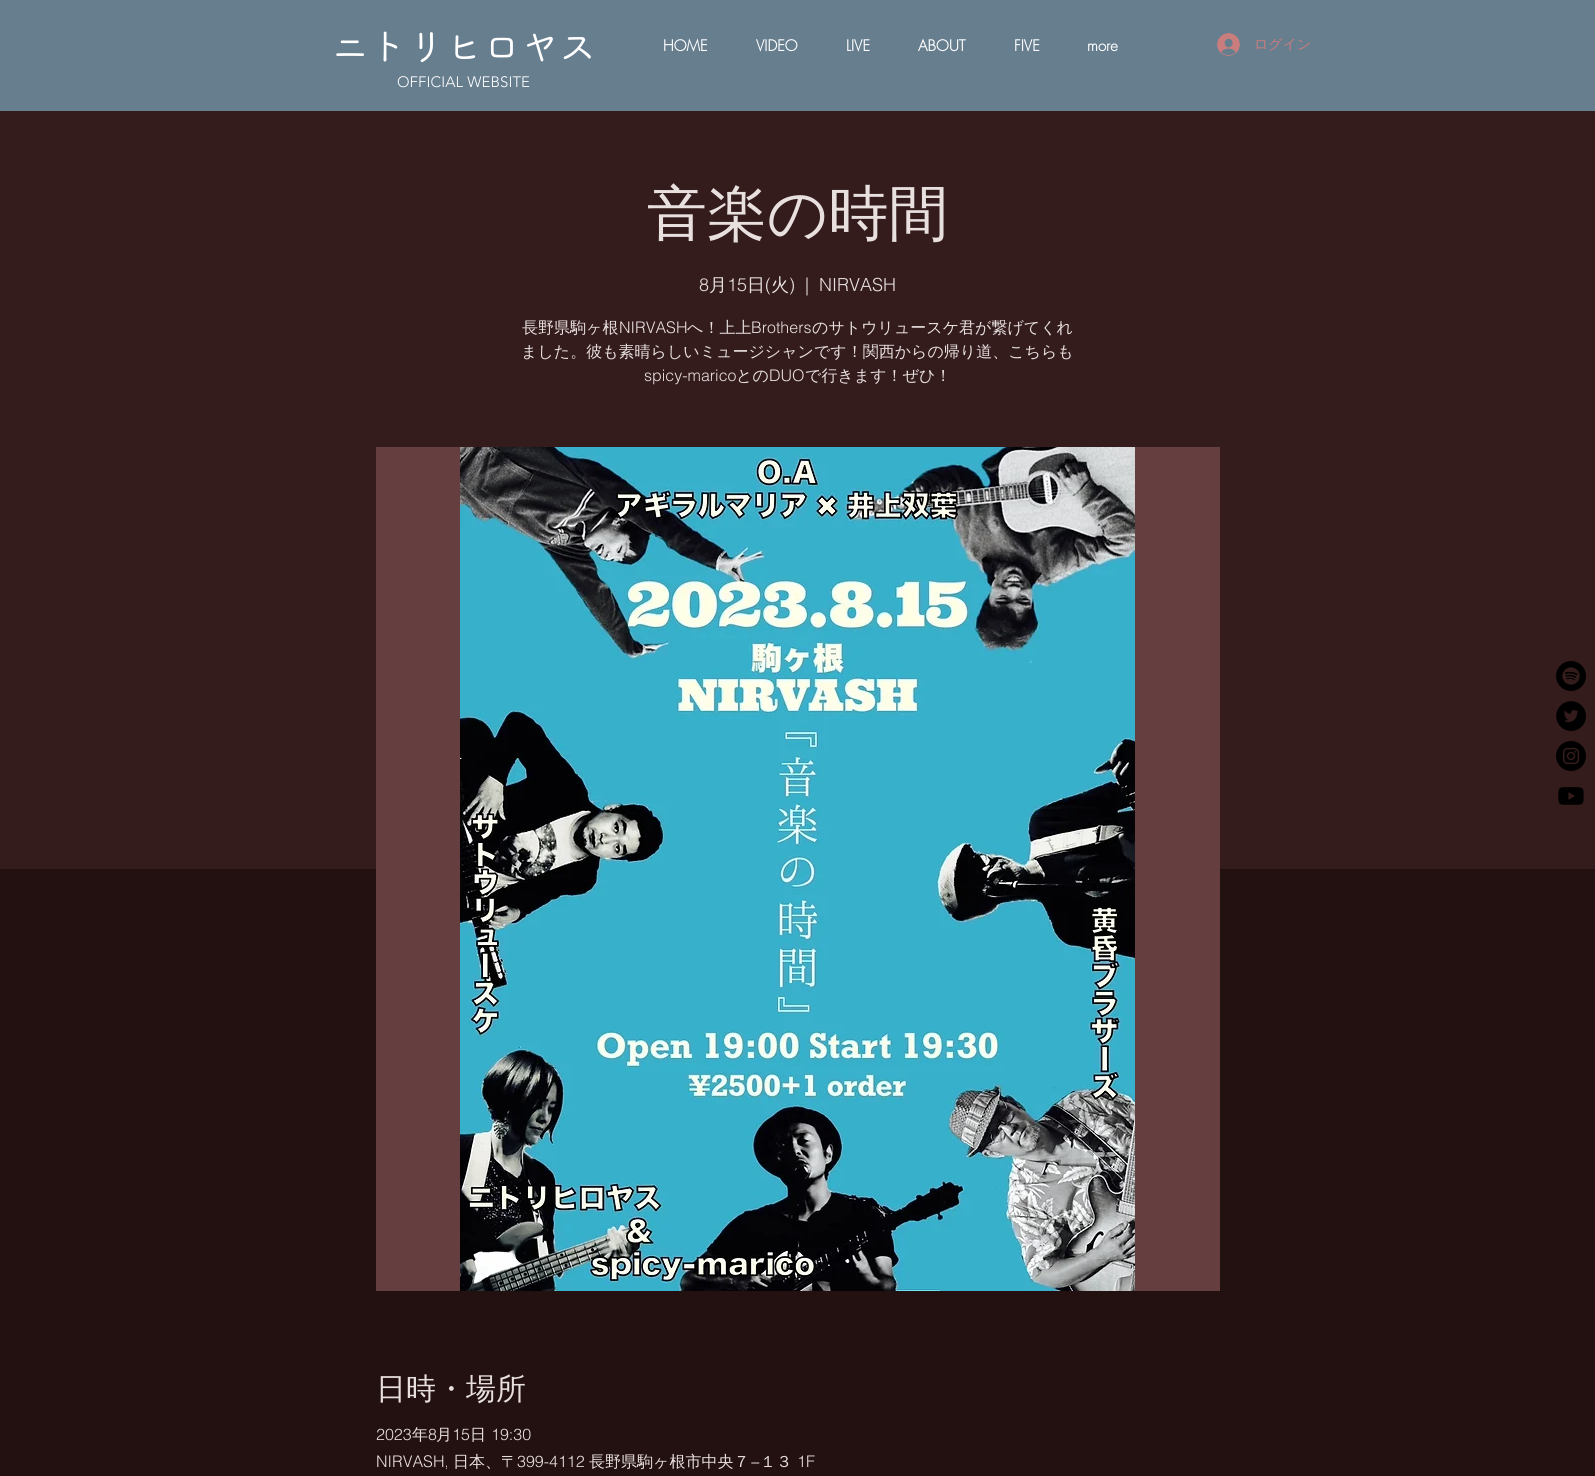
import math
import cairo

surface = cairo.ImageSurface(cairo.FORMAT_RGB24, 1595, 1476)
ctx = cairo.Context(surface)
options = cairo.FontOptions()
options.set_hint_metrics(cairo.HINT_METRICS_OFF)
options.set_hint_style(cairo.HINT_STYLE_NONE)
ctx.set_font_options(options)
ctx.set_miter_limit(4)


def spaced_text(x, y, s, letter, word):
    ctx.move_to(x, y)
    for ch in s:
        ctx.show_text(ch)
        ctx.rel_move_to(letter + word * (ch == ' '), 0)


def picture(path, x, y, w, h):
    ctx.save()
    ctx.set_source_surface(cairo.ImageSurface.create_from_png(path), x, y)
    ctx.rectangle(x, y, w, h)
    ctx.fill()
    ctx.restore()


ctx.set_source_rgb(0.404, 0.494, 0.561)
ctx.paint()
ctx.select_font_face("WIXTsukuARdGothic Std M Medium")
ctx.set_font_size(38)
ctx.set_source_rgb(1, 1, 1)
ctx.move_to(331, 60)
ctx.show_text("ニトリヒロヤス")
ctx.select_font_face("futura", cairo.FONT_SLANT_NORMAL, cairo.FONT_WEIGHT_BOLD)
ctx.set_font_size(15)
ctx.move_to(663, 51)
ctx.show_text("HOME")
ctx.move_to(756, 51)
ctx.show_text("VIDEO")
ctx.move_to(846, 51)
ctx.show_text("LIVE")
ctx.move_to(918, 51)
ctx.show_text("ABOUT")
ctx.move_to(1014, 51)
ctx.show_text("FIVE")
ctx.move_to(1087, 51)
ctx.show_text("more")
picture("img1.png", 1217, 33, 23, 23)
ctx.select_font_face("WenQuanYi Zen Hei Medium")
ctx.set_font_size(14)
ctx.set_source_rgb(0.788, 0.49, 0.49)
ctx.move_to(1254, 49)
ctx.show_text("ログイン")
ctx.select_font_face("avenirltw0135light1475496 Light")
ctx.set_font_size(15)
ctx.set_source_rgb(1, 1, 1)
spaced_text(397, 87, "OFFICIAL WEBSITE", 0.1, 0)
ctx.set_source_rgb(0.204, 0.11, 0.11)
ctx.rectangle(0, 111, 1595, 758)
ctx.fill()
ctx.select_font_face("WenQuanYi Zen Hei Medium")
ctx.set_font_size(60)
ctx.set_source_rgb(0.91, 0.875, 0.875)
ctx.move_to(647, 234)
ctx.show_text("音楽の時間")
ctx.select_font_face("helvetica Light")
ctx.set_font_size(18)
ctx.move_to(699, 291)
ctx.show_text("8")
ctx.select_font_face("WenQuanYi Zen Hei Medium")
ctx.move_to(709, 291)
ctx.show_text("月")
ctx.select_font_face("helvetica Light")
ctx.move_to(727, 291)
ctx.show_text("15")
ctx.select_font_face("WenQuanYi Zen Hei Medium")
ctx.move_to(747, 291)
ctx.show_text("日")
ctx.select_font_face("helvetica Light")
ctx.move_to(765, 291)
ctx.show_text("(")
ctx.select_font_face("WenQuanYi Zen Hei Medium")
ctx.move_to(771, 291)
ctx.show_text("火")
ctx.select_font_face("helvetica Light")
ctx.move_to(789, 291)
ctx.show_text(")")
ctx.move_to(805, 291)
ctx.show_text("|")
ctx.move_to(819, 291)
ctx.show_text("NIRVASH")
ctx.select_font_face("WenQuanYi Zen Hei Medium")
ctx.set_font_size(16)
ctx.move_to(522, 333)
ctx.show_text("長野県駒ヶ根")
ctx.select_font_face("helvetica Light")
ctx.move_to(619, 333)
ctx.show_text("NIRVASH")
ctx.select_font_face("WenQuanYi Zen Hei Medium")
ctx.move_to(687, 333)
ctx.show_text("へ！上上")
ctx.select_font_face("helvetica Light")
ctx.move_to(751, 333)
ctx.show_text("Brothers")
ctx.select_font_face("WenQuanYi Zen Hei Medium")
ctx.move_to(812, 333)
ctx.show_text("のサトウリュースケ君が繋げてくれ")
ctx.move_to(521, 357)
ctx.show_text("ました。彼も素晴らしいミュージシャンです！関西からの帰り道、こちらも")
ctx.select_font_face("helvetica Light")
ctx.move_to(644, 381)
ctx.show_text("spicy-marico")
ctx.select_font_face("WenQuanYi Zen Hei Medium")
ctx.move_to(736, 381)
ctx.show_text("との")
ctx.select_font_face("helvetica Light")
ctx.move_to(769, 381)
ctx.show_text("DUO")
ctx.select_font_face("WenQuanYi Zen Hei Medium")
ctx.move_to(805, 381)
ctx.show_text("で行きます！ぜひ！")
ctx.set_source_rgb(0.137, 0.067, 0.067)
ctx.rectangle(0, 869, 1595, 607)
ctx.fill()
ctx.set_source_rgb(0.396, 0.247, 0.247)
ctx.rectangle(376, 447, 844, 844)
ctx.fill()
picture("img2.png", 460, 447, 675, 844)
ctx.set_font_size(30)
ctx.set_source_rgb(0.91, 0.875, 0.875)
ctx.move_to(376, 1399)
ctx.show_text("日時・場所")
ctx.select_font_face("helvetica Light")
ctx.set_font_size(16)
ctx.move_to(376, 1440)
ctx.show_text("2023")
ctx.select_font_face("WenQuanYi Zen Hei Medium")
ctx.move_to(412, 1440)
ctx.show_text("年")
ctx.select_font_face("helvetica Light")
ctx.move_to(428, 1440)
ctx.show_text("8")
ctx.select_font_face("WenQuanYi Zen Hei Medium")
ctx.move_to(436, 1440)
ctx.show_text("月")
ctx.select_font_face("helvetica Light")
ctx.move_to(452, 1440)
ctx.show_text("15")
ctx.select_font_face("WenQuanYi Zen Hei Medium")
ctx.move_to(470, 1440)
ctx.show_text("日")
ctx.select_font_face("helvetica Light")
ctx.move_to(491, 1440)
ctx.show_text("19:30")
ctx.move_to(376, 1467)
ctx.show_text("NIRVASH,")
ctx.select_font_face("WenQuanYi Zen Hei Medium")
ctx.move_to(453, 1467)
ctx.show_text("日本、〒")
ctx.select_font_face("helvetica Light")
ctx.move_to(517, 1467)
ctx.show_text("399-4112")
ctx.select_font_face("WenQuanYi Zen Hei Medium")
ctx.move_to(589, 1467)
ctx.show_text("長野県駒ヶ根市中央７")
ctx.select_font_face("helvetica Light")
ctx.move_to(750, 1467)
ctx.show_text("−")
ctx.select_font_face("WenQuanYi Zen Hei Medium")
ctx.move_to(760, 1467)
ctx.show_text("１３")
ctx.select_font_face("helvetica Light")
ctx.move_to(797, 1467)
ctx.show_text("1F")
picture("img3.png", 1556, 661, 30, 30)
picture("img4.png", 1556, 701, 30, 30)
picture("img5.png", 1556, 741, 30, 30)
picture("img6.png", 1558, 787, 26, 18)
surface.write_to_png("page.png")
